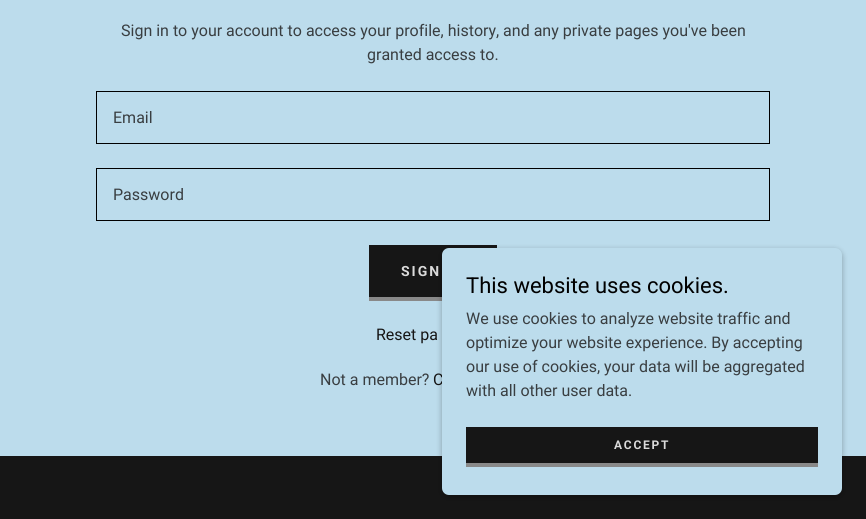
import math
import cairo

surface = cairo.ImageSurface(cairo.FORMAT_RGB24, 866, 519)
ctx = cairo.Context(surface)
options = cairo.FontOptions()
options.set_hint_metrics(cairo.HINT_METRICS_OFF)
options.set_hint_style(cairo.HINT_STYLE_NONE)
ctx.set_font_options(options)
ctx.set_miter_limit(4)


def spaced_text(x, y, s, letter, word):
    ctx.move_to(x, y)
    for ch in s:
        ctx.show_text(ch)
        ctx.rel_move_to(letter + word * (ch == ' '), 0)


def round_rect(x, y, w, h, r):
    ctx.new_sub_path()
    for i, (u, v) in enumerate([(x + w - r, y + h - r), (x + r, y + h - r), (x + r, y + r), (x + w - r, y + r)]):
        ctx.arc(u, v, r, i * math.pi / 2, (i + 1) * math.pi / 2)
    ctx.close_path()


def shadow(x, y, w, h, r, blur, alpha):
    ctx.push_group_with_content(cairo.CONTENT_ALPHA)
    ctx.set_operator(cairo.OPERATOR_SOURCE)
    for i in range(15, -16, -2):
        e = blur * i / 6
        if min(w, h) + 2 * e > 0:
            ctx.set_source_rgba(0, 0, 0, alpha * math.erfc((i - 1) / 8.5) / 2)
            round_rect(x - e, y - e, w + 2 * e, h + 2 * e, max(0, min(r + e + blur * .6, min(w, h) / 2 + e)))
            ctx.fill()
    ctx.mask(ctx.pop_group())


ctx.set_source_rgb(0.086, 0.086, 0.086)
ctx.paint()
ctx.set_source_rgb(0.737, 0.863, 0.922)
ctx.rectangle(0, 0, 866, 456)
ctx.fill()
ctx.select_font_face("Roboto")
ctx.set_font_size(16)
ctx.set_source_rgb(0.224, 0.243, 0.255)
ctx.move_to(121, 36)
ctx.show_text("Sign in to your account to access your profile, history, and any private pages you've been")
ctx.move_to(367, 60)
ctx.show_text("granted access to.")
ctx.rectangle(96.5, 91.5, 673, 52)
ctx.set_source_rgb(0, 0, 0)
ctx.set_line_width(1)
ctx.stroke()
ctx.set_source_rgb(0.224, 0.243, 0.255)
ctx.move_to(113, 123)
ctx.show_text("Email")
ctx.rectangle(96.5, 168.5, 673, 52)
ctx.set_source_rgb(0, 0, 0)
ctx.stroke()
ctx.set_source_rgb(0.224, 0.243, 0.255)
ctx.move_to(113, 200)
ctx.show_text("Password")
ctx.set_source_rgb(0.086, 0.086, 0.086)
ctx.rectangle(369, 245, 128, 52)
ctx.fill()
ctx.set_source_rgb(0.537, 0.537, 0.537)
ctx.rectangle(369, 297, 73, 4)
ctx.fill()
ctx.select_font_face("Roboto", cairo.FONT_SLANT_NORMAL, cairo.FONT_WEIGHT_BOLD)
ctx.set_font_size(14)
ctx.set_source_rgb(0.859, 0.859, 0.859)
spaced_text(401, 276, "SIGN", 2, 0)
ctx.select_font_face("Roboto")
ctx.set_font_size(16)
ctx.set_source_rgb(0.086, 0.086, 0.086)
ctx.move_to(376, 340)
ctx.show_text("Reset pa")
ctx.set_source_rgb(0.224, 0.243, 0.255)
ctx.move_to(320, 385)
ctx.show_text("Not a member?")
ctx.set_source_rgb(0.086, 0.086, 0.086)
ctx.move_to(433, 385)
ctx.show_text("C")
ctx.set_source_rgb(0, 0, 0)
shadow(442, 250, 400, 247, 7, 3, 0.3)
ctx.set_source_rgb(0.737, 0.863, 0.922)
round_rect(442, 248, 400, 247, 7)
ctx.fill()
ctx.set_font_size(22)
ctx.set_source_rgb(0, 0, 0)
ctx.move_to(466, 293)
ctx.show_text("This website uses cookies.")
ctx.set_font_size(16)
ctx.set_source_rgb(0.224, 0.243, 0.255)
ctx.move_to(466, 324)
ctx.show_text("We use cookies to analyze website traffic and")
ctx.move_to(466, 348)
ctx.show_text("optimize your website experience. By accepting")
ctx.move_to(466, 372)
ctx.show_text("our use of cookies, your data will be aggregated")
ctx.move_to(466, 396)
ctx.show_text("with all other user data.")
ctx.set_source_rgb(0.086, 0.086, 0.086)
ctx.rectangle(466, 427, 352, 36)
ctx.fill()
ctx.set_source_rgb(0.537, 0.537, 0.537)
ctx.rectangle(466, 463, 352, 4)
ctx.fill()
ctx.select_font_face("Roboto", cairo.FONT_SLANT_NORMAL, cairo.FONT_WEIGHT_BOLD)
ctx.set_font_size(12)
ctx.set_source_rgb(0.859, 0.859, 0.859)
spaced_text(614, 449, "ACCEPT", 1.75, 0)
surface.write_to_png("page.png")
